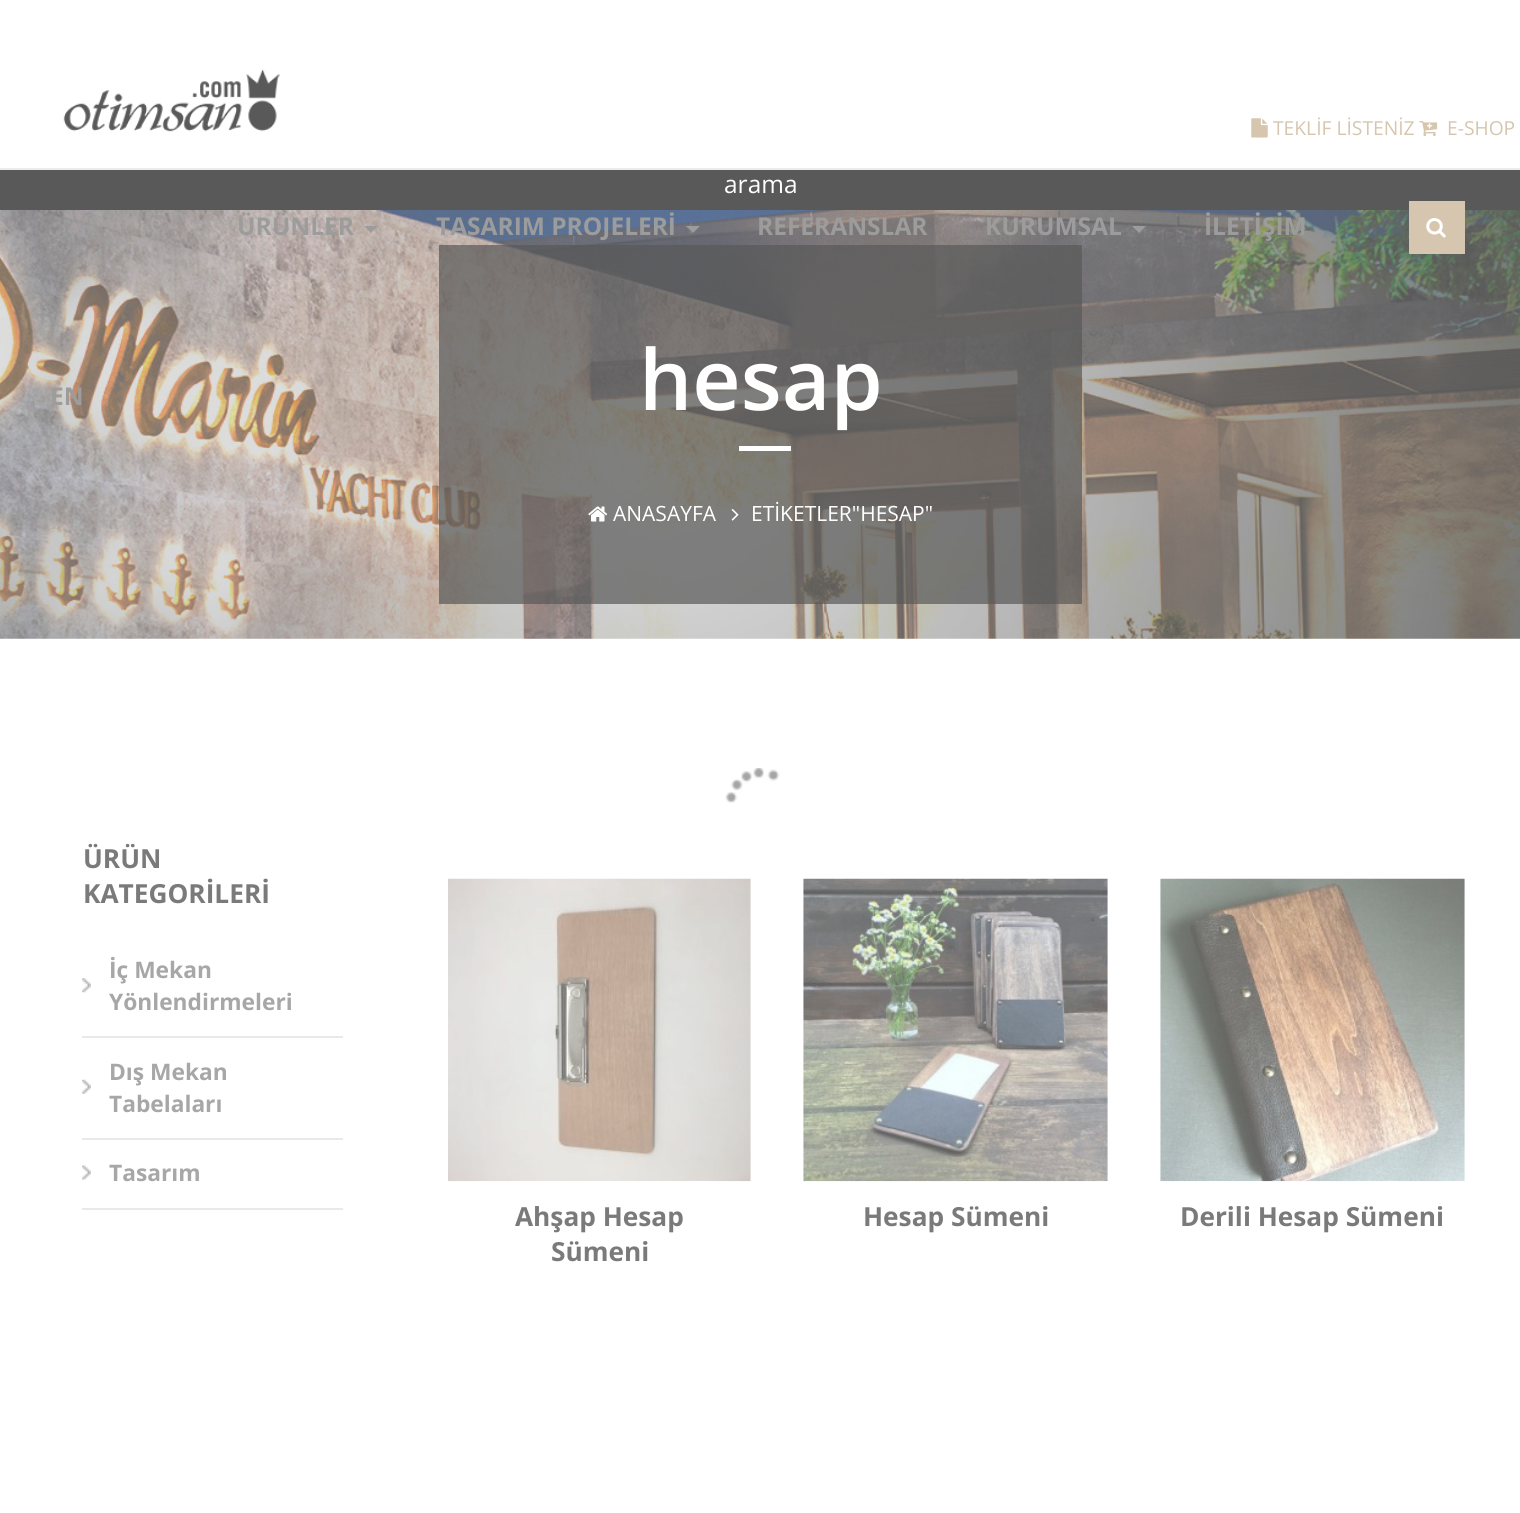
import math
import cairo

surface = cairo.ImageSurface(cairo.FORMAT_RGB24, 1520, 1513)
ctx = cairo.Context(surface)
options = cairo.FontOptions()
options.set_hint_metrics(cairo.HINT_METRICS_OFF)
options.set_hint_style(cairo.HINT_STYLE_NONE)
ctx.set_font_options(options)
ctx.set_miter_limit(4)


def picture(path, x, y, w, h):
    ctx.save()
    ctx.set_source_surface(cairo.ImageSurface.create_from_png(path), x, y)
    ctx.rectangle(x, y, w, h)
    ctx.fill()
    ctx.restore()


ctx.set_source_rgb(1, 1, 1)
ctx.paint()
ctx.set_source_rgb(0.925, 0.925, 0.925)
ctx.rectangle(0, 168, 1520, 2)
ctx.fill()
picture("img1.png", 63, 68, 217, 64)
picture("img2.png", 1251, 118, 17, 20)
ctx.select_font_face("Open Sans")
ctx.set_font_size(19.25)
ctx.set_source_rgb(0.839, 0.776, 0.686)
ctx.move_to(1273, 135)
ctx.show_text("TEKLİF LİSTENİZ")
picture("img3.png", 1419, 121, 19, 16)
ctx.move_to(1447, 135)
ctx.show_text("E-SHOP")
picture("img5.png", 0, 210, 1520, 429)
ctx.select_font_face("Open Sans", cairo.FONT_SLANT_NORMAL, cairo.FONT_WEIGHT_BOLD)
ctx.set_font_size(24.5)
ctx.set_source_rgb(0.612, 0.612, 0.612)
ctx.move_to(237, 235)
ctx.show_text("ÜRÜNLER")
ctx.new_path()
ctx.move_to(364, 226)
ctx.line_to(378, 226)
ctx.line_to(371, 233)
ctx.close_path()
ctx.fill()
ctx.move_to(436, 235)
ctx.show_text("TASARIM PROJELERİ")
ctx.new_path()
ctx.move_to(686, 226)
ctx.line_to(700, 226)
ctx.line_to(693, 233)
ctx.close_path()
ctx.fill()
ctx.move_to(757, 235)
ctx.show_text("REFERANSLAR")
ctx.move_to(985, 235)
ctx.show_text("KURUMSAL")
ctx.new_path()
ctx.move_to(1132, 226)
ctx.line_to(1146, 226)
ctx.line_to(1139, 233)
ctx.close_path()
ctx.fill()
ctx.move_to(1204, 235)
ctx.show_text("İLETİŞİM")
ctx.move_to(50, 405)
ctx.show_text("EN")
ctx.set_source_rgb(0.349, 0.349, 0.349)
ctx.rectangle(0, 170, 1520, 40)
ctx.fill()
ctx.set_source_rgb(0.839, 0.776, 0.686)
ctx.rectangle(1409, 201, 56, 53)
ctx.fill()
picture("img4.png", 1426, 218, 20, 20)
ctx.select_font_face("Open Sans")
ctx.set_source_rgb(1, 1, 1)
ctx.move_to(724, 193)
ctx.show_text("arama")
ctx.set_source_rgba(0.349, 0.349, 0.349, 0.7)
ctx.rectangle(439, 245, 643, 359)
ctx.fill()
ctx.select_font_face("Open Sans SemiBold")
ctx.set_font_size(84)
ctx.set_source_rgb(1, 1, 1)
ctx.move_to(639, 410)
ctx.show_text("hesap")
ctx.rectangle(739, 446, 52, 5)
ctx.fill()
picture("img6.png", 588, 506, 20, 16)
ctx.select_font_face("Open Sans")
ctx.set_font_size(21)
ctx.move_to(613, 521)
ctx.show_text("ANASAYFA")
picture("img7.png", 731, 509, 8, 12)
ctx.move_to(751, 521)
ctx.show_text("ETİKETLER\"HESAP\"")
picture("img8.png", 725, 768, 55, 35)
ctx.select_font_face("Open Sans", cairo.FONT_SLANT_NORMAL, cairo.FONT_WEIGHT_BOLD)
ctx.set_font_size(26.25)
ctx.set_source_rgb(0.478, 0.478, 0.478)
ctx.move_to(83, 868)
ctx.show_text("ÜRÜN")
ctx.move_to(83, 903)
ctx.show_text("KATEGORİLERİ")
picture("img9.png", 82, 978, 9, 15)
ctx.set_source_rgb(0.914, 0.914, 0.914)
ctx.rectangle(82, 1036, 261, 2)
ctx.fill()
ctx.set_font_size(22.75)
ctx.set_source_rgb(0.655, 0.655, 0.655)
ctx.move_to(109, 978)
ctx.show_text("İç Mekan")
ctx.move_to(109, 1010)
ctx.show_text("Yönlendirmeleri")
picture("img10.png", 82, 1079, 9, 15)
ctx.set_source_rgb(0.914, 0.914, 0.914)
ctx.rectangle(82, 1138, 261, 2)
ctx.fill()
ctx.set_source_rgb(0.655, 0.655, 0.655)
ctx.move_to(109, 1080)
ctx.show_text("Dış Mekan")
ctx.move_to(109, 1112)
ctx.show_text("Tabelaları")
picture("img11.png", 82, 1165, 9, 15)
ctx.set_source_rgb(0.914, 0.914, 0.914)
ctx.rectangle(82, 1208, 261, 2)
ctx.fill()
ctx.set_source_rgb(0.655, 0.655, 0.655)
ctx.move_to(109, 1181)
ctx.show_text("Tasarım")
picture("img12.png", 448, 878, 303, 304)
ctx.set_font_size(26.25)
ctx.set_source_rgb(0.478, 0.478, 0.478)
ctx.move_to(515, 1226)
ctx.show_text("Ahşap Hesap")
ctx.move_to(551, 1261)
ctx.show_text("Sümeni")
picture("img13.png", 803, 878, 305, 304)
ctx.move_to(863, 1226)
ctx.show_text("Hesap Sümeni")
picture("img14.png", 1160, 878, 305, 304)
ctx.move_to(1180, 1226)
ctx.show_text("Derili Hesap Sümeni")
surface.write_to_png("page.png")
